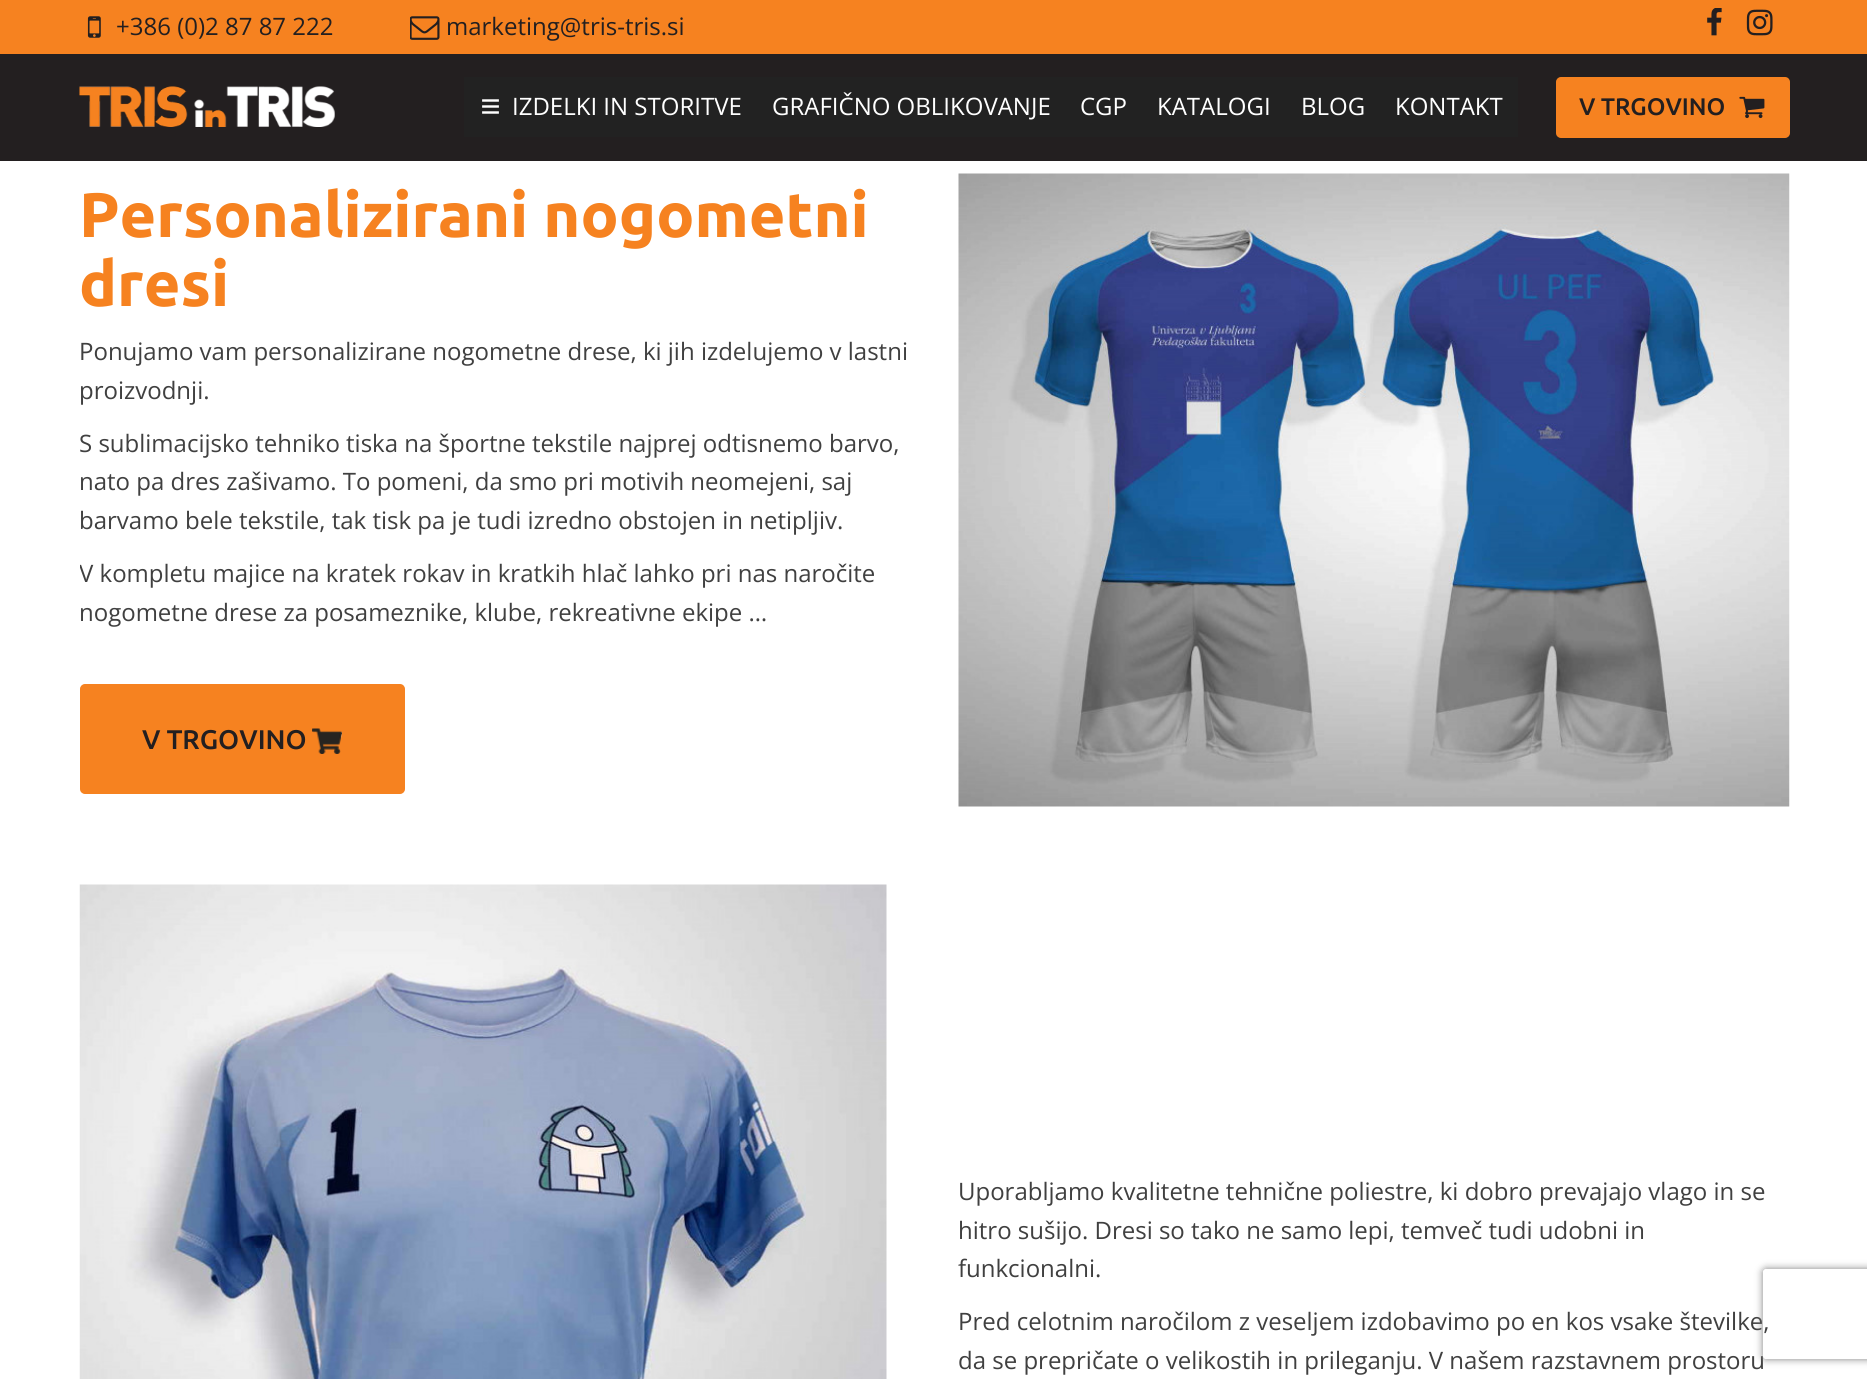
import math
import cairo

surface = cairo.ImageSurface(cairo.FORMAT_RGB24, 1867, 1379)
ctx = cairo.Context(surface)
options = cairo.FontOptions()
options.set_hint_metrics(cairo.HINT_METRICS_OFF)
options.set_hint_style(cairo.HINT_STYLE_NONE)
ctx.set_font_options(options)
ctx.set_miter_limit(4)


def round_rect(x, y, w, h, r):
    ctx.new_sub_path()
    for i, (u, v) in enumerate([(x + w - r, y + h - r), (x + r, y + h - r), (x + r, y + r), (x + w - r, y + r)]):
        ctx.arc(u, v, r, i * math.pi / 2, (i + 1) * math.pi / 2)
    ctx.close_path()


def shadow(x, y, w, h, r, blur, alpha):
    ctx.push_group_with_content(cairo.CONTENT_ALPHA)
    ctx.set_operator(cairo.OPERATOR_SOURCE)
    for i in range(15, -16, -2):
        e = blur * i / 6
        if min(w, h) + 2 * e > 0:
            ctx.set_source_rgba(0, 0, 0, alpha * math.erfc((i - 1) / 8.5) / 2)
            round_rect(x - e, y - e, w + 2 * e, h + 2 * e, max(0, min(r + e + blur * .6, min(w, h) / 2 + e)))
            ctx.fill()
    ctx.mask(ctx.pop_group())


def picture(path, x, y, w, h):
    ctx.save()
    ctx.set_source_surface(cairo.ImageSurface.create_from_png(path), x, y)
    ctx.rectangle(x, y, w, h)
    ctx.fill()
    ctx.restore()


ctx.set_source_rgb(1, 1, 1)
ctx.paint()
ctx.set_source_rgb(0.961, 0.51, 0.125)
ctx.rectangle(0, 0, 1867, 54)
ctx.fill()
picture("img1.png", 87, 16, 14, 22)
ctx.select_font_face("Open Sans")
ctx.set_font_size(24)
ctx.set_source_rgb(0.137, 0.122, 0.125)
ctx.move_to(116, 35)
ctx.show_text("+386 (0)2 87 87 222")
picture("img2.png", 410, 16, 30, 24)
ctx.move_to(446, 35)
ctx.show_text("marketing@tris-tris.si")
picture("img3.png", 1707, 8, 15, 28)
picture("img4.png", 1746, 9, 27, 27)
ctx.rectangle(0, 54, 1867, 107)
ctx.fill()
picture("img5.png", 79, 86, 256, 41)
ctx.set_source_rgb(0.133, 0.133, 0.133)
ctx.rectangle(464, 77, 1054, 60)
ctx.fill()
picture("img6.png", 482, 99, 17, 15)
ctx.set_source_rgb(1, 1, 1)
ctx.move_to(512, 115)
ctx.show_text("IZDELKI IN STORITVE")
ctx.move_to(772, 115)
ctx.show_text("GRAFIČNO OBLIKOVANJE")
ctx.move_to(1080, 115)
ctx.show_text("CGP")
ctx.move_to(1157, 115)
ctx.show_text("KATALOGI")
ctx.move_to(1301, 115)
ctx.show_text("BLOG")
ctx.move_to(1395, 115)
ctx.show_text("KONTAKT")
ctx.set_source_rgb(0.961, 0.51, 0.125)
round_rect(1557, 78, 232, 59, 4)
ctx.fill_preserve()
ctx.stroke()
ctx.select_font_face("Ubuntu Medium")
ctx.set_source_rgb(0.137, 0.122, 0.125)
ctx.move_to(1579, 115)
ctx.show_text("V TRGOVINO")
picture("img7.png", 1739, 96, 26, 23)
ctx.select_font_face("Ubuntu", cairo.FONT_SLANT_NORMAL, cairo.FONT_WEIGHT_BOLD)
ctx.set_font_size(63)
ctx.set_source_rgb(0.961, 0.51, 0.125)
ctx.move_to(79, 237)
ctx.show_text("Personalizirani nogometni")
ctx.move_to(79, 306)
ctx.show_text("dresi")
ctx.select_font_face("Open Sans")
ctx.set_font_size(24)
ctx.set_source_rgb(0.251, 0.251, 0.251)
ctx.move_to(79, 360)
ctx.show_text("Ponujamo vam personalizirane nogometne drese, ki jih izdelujemo v lastni")
ctx.move_to(79, 399)
ctx.show_text("proizvodnji.")
ctx.move_to(79, 452)
ctx.show_text("S sublimacijsko tehniko tiska na športne tekstile najprej odtisnemo barvo,")
ctx.move_to(79, 490)
ctx.show_text("nato pa dres zašivamo. To pomeni, da smo pri motivih neomejeni, saj")
ctx.move_to(79, 529)
ctx.show_text("barvamo bele tekstile, tak tisk pa je tudi izredno obstojen in netipljiv.")
ctx.save()
ctx.rectangle(80, 150, 1710, 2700)
ctx.clip()
ctx.move_to(79, 582)
ctx.show_text("V kompletu majice na kratek rokav in kratkih hlač lahko pri nas naročite")
ctx.restore()
ctx.move_to(79, 621)
ctx.show_text("nogometne drese za posameznike, klube, rekreativne ekipe …")
ctx.set_source_rgb(0.961, 0.51, 0.125)
round_rect(81, 685, 323, 108, 4)
ctx.fill_preserve()
ctx.stroke()
ctx.select_font_face("Ubuntu Medium")
ctx.set_font_size(27)
ctx.set_source_rgb(0.137, 0.122, 0.125)
ctx.move_to(142, 749)
ctx.show_text("V TRGOVINO")
picture("img8.png", 312, 728, 30, 26)
picture("img9.png", 958, 173, 832, 634)
picture("img10.png", 79, 884, 808, 495)
ctx.select_font_face("Open Sans")
ctx.set_font_size(24)
ctx.set_source_rgb(0.251, 0.251, 0.251)
ctx.move_to(958, 1200)
ctx.show_text("Uporabljamo kvalitetne tehnične poliestre, ki dobro prevajajo vlago in se")
ctx.move_to(958, 1239)
ctx.show_text("hitro sušijo. Dresi so tako ne samo lepi, temveč tudi udobni in")
ctx.move_to(958, 1277)
ctx.show_text("funkcionalni.")
ctx.move_to(958, 1330)
ctx.show_text("Pred celotnim naročilom z veseljem izdobavimo po en kos vsake številke,")
ctx.move_to(958, 1369)
ctx.show_text("da se prepričate o velikostih in prileganju. V našem razstavnem prostoru")
ctx.save()
ctx.set_fill_rule(cairo.FILL_RULE_EVEN_ODD)
ctx.new_path()
ctx.move_to(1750, 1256)
ctx.line_to(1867, 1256)
ctx.line_to(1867, 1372)
ctx.line_to(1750, 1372)
ctx.close_path()
ctx.move_to(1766, 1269)
ctx.line_to(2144, 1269)
ctx.curve_to(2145.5, 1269, 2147, 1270.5, 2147, 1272)
ctx.line_to(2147, 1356)
ctx.curve_to(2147, 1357.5, 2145.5, 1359, 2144, 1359)
ctx.line_to(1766, 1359)
ctx.curve_to(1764.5, 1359, 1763, 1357.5, 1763, 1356)
ctx.line_to(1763, 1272)
ctx.curve_to(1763, 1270.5, 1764.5, 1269, 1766, 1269)
ctx.close_path()
ctx.clip()
ctx.set_source_rgb(0.502, 0.502, 0.502)
shadow(1763, 1269, 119, 90, 3, 4, 1)
ctx.restore()
surface.write_to_png("page.png")
